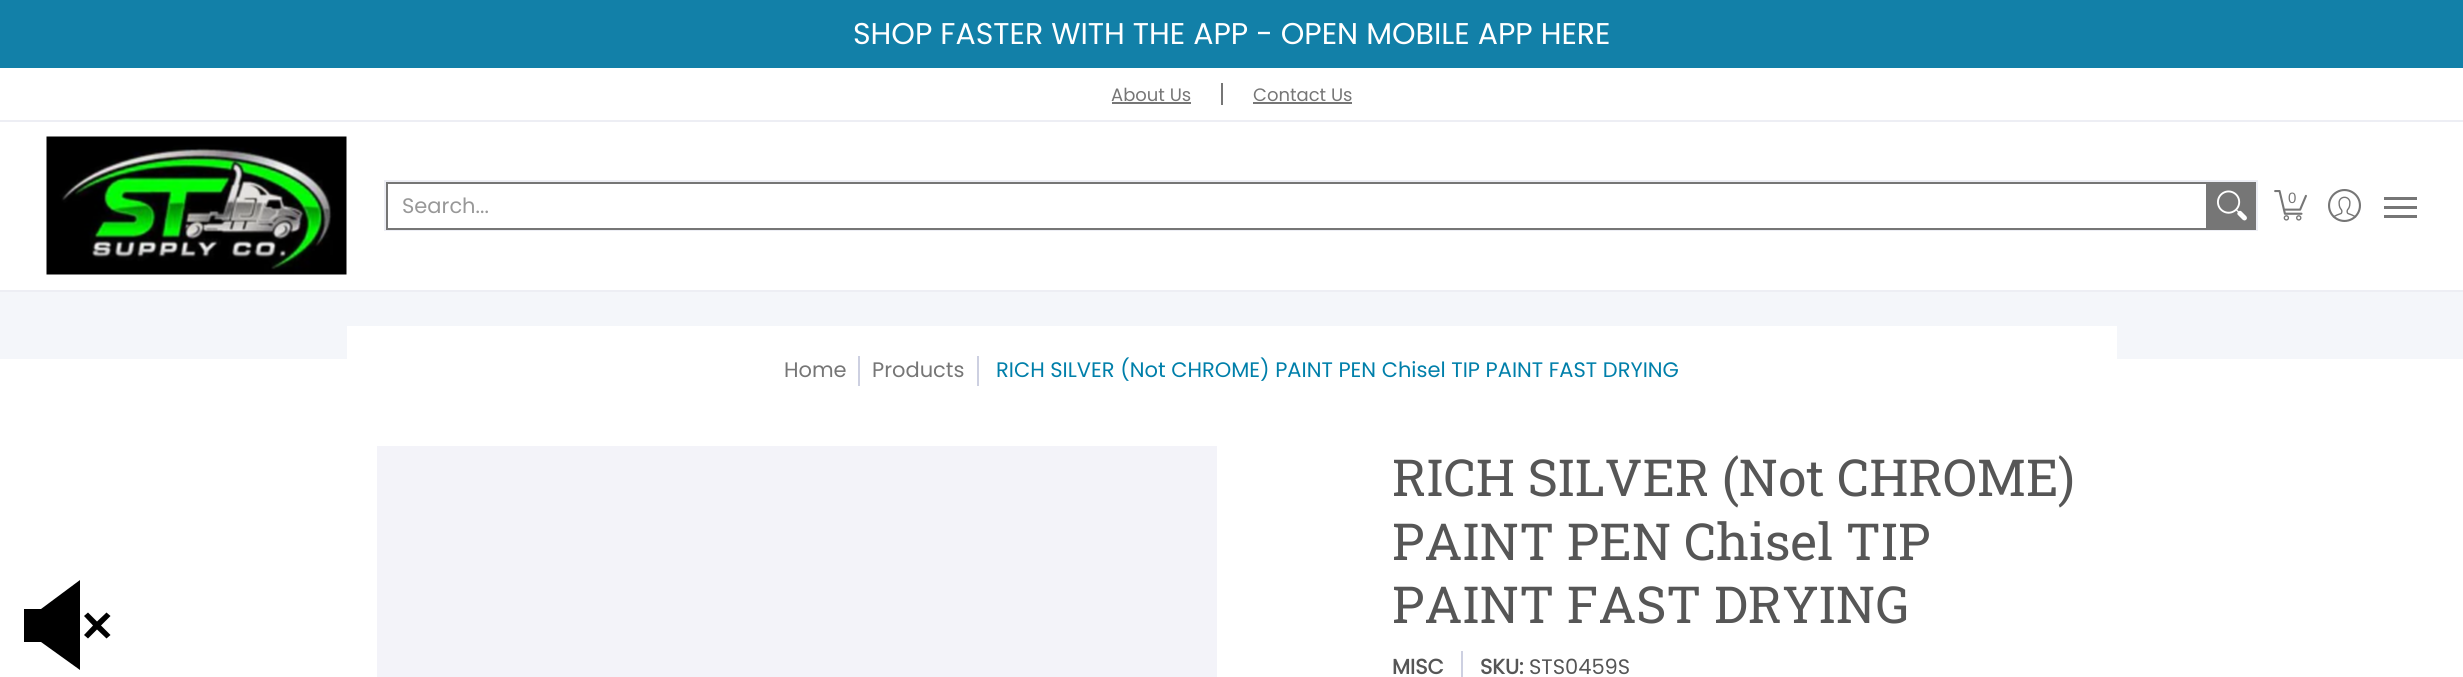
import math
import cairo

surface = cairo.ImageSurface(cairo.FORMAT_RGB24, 2463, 677)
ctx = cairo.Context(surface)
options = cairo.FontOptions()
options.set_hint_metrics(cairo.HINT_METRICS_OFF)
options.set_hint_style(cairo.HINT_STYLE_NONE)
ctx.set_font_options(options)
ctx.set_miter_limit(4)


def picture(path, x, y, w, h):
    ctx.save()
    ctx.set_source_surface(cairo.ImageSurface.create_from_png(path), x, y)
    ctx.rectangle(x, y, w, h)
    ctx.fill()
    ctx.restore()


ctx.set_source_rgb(1, 1, 1)
ctx.paint()
ctx.set_source_rgb(0.071, 0.502, 0.659)
ctx.rectangle(0, 0, 2463, 68)
ctx.fill()
ctx.select_font_face("Poppins")
ctx.set_font_size(30)
ctx.set_source_rgb(1, 1, 1)
ctx.move_to(853, 44)
ctx.show_text("SHOP FASTER WITH THE APP - OPEN MOBILE APP HERE")
ctx.set_source_rgb(0.929, 0.933, 0.957)
ctx.rectangle(0, 120, 2463, 2)
ctx.fill()
ctx.set_font_size(18)
ctx.set_source_rgb(0.463, 0.463, 0.463)
ctx.move_to(1111, 101)
ctx.show_text("About Us")
ctx.rectangle(1112, 102, 79, 2)
ctx.fill()
ctx.rectangle(1221, 83, 2, 22)
ctx.fill()
ctx.move_to(1253, 101)
ctx.show_text("Contact Us")
ctx.rectangle(1253, 102, 99, 2)
ctx.fill()
ctx.set_source_rgb(0.929, 0.933, 0.957)
ctx.rectangle(0, 290, 2463, 2)
ctx.fill()
picture("img1.png", 46, 136, 301, 139)
ctx.rectangle(385, 181, 1872, 49)
ctx.stroke()
ctx.rectangle(387, 183, 1820, 46)
ctx.set_source_rgb(0.463, 0.463, 0.463)
ctx.stroke()
ctx.set_font_size(21)
ctx.set_source_rgb(0.596, 0.596, 0.596)
ctx.move_to(402, 213)
ctx.show_text("Search...")
ctx.set_source_rgb(0.463, 0.463, 0.463)
ctx.rectangle(2208, 182, 48, 48)
ctx.fill()
picture("img2.png", 2217, 190, 30, 31)
picture("img3.png", 2274, 190, 33, 31)
ctx.select_font_face("Liberation Sans")
ctx.set_font_size(15)
ctx.move_to(2288, 203)
ctx.show_text("0")
picture("img4.png", 2328, 189, 33, 33)
ctx.rectangle(2384, 197, 33, 3)
ctx.fill()
ctx.rectangle(2384, 215, 33, 3)
ctx.fill()
ctx.rectangle(2384, 206, 33, 3)
ctx.fill()
ctx.set_source_rgb(0, 0, 0)
ctx.set_fill_rule(cairo.FILL_RULE_EVEN_ODD)
ctx.new_path()
ctx.move_to(80, 670)
ctx.line_to(80, 580)
ctx.line_to(41, 609)
ctx.line_to(24, 609)
ctx.line_to(24, 642)
ctx.line_to(41, 642)
ctx.close_path()
ctx.fill()
ctx.new_path()
ctx.move_to(106.5, 612.5)
ctx.line_to(97, 621.5)
ctx.line_to(88, 612.5)
ctx.line_to(84, 616)
ctx.line_to(93, 625.5)
ctx.line_to(84, 635)
ctx.line_to(88, 638.5)
ctx.line_to(97, 629.5)
ctx.line_to(106.5, 638.5)
ctx.line_to(110.5, 635)
ctx.line_to(101, 625.5)
ctx.line_to(110.5, 616)
ctx.close_path()
ctx.fill()
ctx.set_source_rgb(0.957, 0.961, 0.98)
ctx.rectangle(0, 292, 2463, 67)
ctx.fill()
ctx.set_source_rgb(1, 1, 1)
ctx.rectangle(347, 326, 1770, 33)
ctx.fill()
ctx.select_font_face("Poppins")
ctx.set_font_size(21)
ctx.set_source_rgb(0.463, 0.463, 0.463)
ctx.move_to(784, 377)
ctx.show_text("Home")
ctx.set_source_rgb(0.804, 0.816, 0.882)
ctx.rectangle(858, 356, 2, 30)
ctx.fill()
ctx.set_source_rgb(0.463, 0.463, 0.463)
ctx.move_to(872, 377)
ctx.show_text("Products")
ctx.set_source_rgb(0.804, 0.816, 0.882)
ctx.rectangle(977, 356, 2, 30)
ctx.fill()
ctx.set_source_rgb(0, 0.498, 0.667)
ctx.move_to(996, 377)
ctx.show_text("RICH SILVER (Not CHROME) PAINT PEN Chisel TIP PAINT FAST DRYING")
ctx.set_source_rgb(0.953, 0.953, 0.973)
ctx.rectangle(377, 446, 840, 231)
ctx.fill()
ctx.select_font_face("Roboto Slab")
ctx.set_font_size(51)
ctx.set_source_rgb(0.337, 0.337, 0.337)
ctx.move_to(1392, 496)
ctx.show_text("RICH SILVER (Not CHROME)")
ctx.move_to(1392, 560)
ctx.show_text("PAINT PEN Chisel TIP")
ctx.move_to(1392, 623)
ctx.show_text("PAINT FAST DRYING")
ctx.select_font_face("Poppins", cairo.FONT_SLANT_NORMAL, cairo.FONT_WEIGHT_BOLD)
ctx.set_font_size(21)
ctx.move_to(1392, 674)
ctx.show_text("MISC")
ctx.set_source_rgb(0.804, 0.816, 0.882)
ctx.rectangle(1461, 651, 2, 26)
ctx.fill()
ctx.set_source_rgb(0.337, 0.337, 0.337)
ctx.move_to(1480, 674)
ctx.show_text("SKU:")
ctx.select_font_face("Poppins")
ctx.move_to(1529, 674)
ctx.show_text("STS0459S")
surface.write_to_png("page.png")
